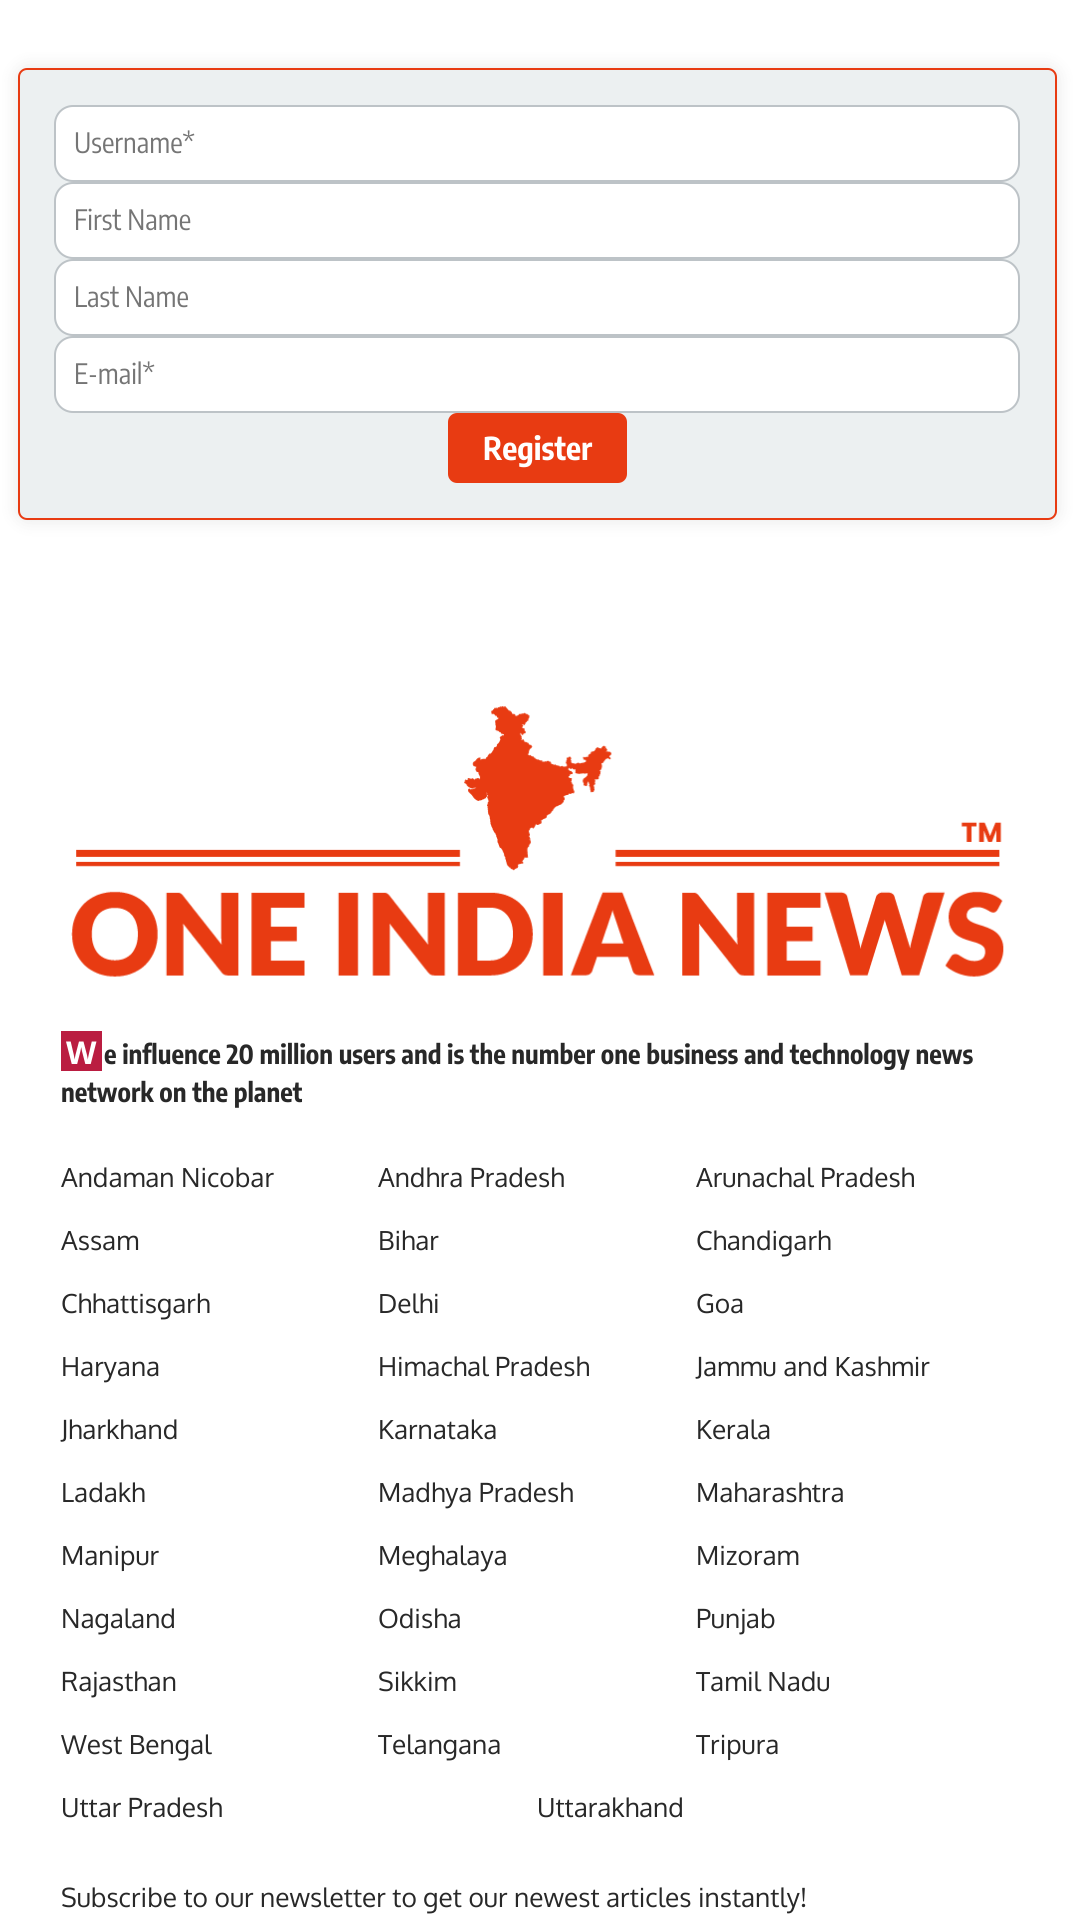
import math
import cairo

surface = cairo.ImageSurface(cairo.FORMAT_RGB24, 1073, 1920)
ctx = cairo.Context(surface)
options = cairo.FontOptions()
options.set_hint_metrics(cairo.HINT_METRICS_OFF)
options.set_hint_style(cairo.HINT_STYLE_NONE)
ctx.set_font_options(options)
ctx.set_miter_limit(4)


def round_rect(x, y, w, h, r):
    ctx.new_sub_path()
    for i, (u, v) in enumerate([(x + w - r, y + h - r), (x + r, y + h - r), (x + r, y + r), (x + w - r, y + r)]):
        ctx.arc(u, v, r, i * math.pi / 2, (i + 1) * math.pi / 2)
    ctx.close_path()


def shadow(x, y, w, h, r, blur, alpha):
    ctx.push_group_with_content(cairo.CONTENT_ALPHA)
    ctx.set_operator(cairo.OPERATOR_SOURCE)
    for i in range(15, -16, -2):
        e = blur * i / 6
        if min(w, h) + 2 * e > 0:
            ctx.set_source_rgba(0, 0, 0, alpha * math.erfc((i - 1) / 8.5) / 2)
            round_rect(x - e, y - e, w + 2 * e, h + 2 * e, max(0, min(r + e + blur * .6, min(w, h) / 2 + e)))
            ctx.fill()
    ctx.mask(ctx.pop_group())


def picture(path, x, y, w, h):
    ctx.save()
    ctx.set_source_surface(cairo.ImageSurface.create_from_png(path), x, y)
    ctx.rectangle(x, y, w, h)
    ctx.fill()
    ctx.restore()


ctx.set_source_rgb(1, 1, 1)
ctx.paint()
ctx.set_source_rgb(0, 0, 0)
shadow(18, 68, 1039, 452, 9, 9, 0.1)
ctx.set_source_rgb(0.925, 0.941, 0.945)
round_rect(19, 69, 1037, 450, 8)
ctx.fill_preserve()
ctx.set_source_rgb(0.91, 0.231, 0.071)
ctx.stroke()
ctx.set_source_rgb(1, 1, 1)
round_rect(55, 106, 964, 75, 18)
ctx.fill_preserve()
ctx.set_source_rgb(0.741, 0.765, 0.78)
ctx.stroke()
ctx.select_font_face("Encode Sans Condensed")
ctx.set_font_size(28)
ctx.set_source_rgb(0.459, 0.459, 0.459)
ctx.move_to(74, 153)
ctx.show_text("Username*")
ctx.set_source_rgb(1, 1, 1)
round_rect(55, 183, 964, 75, 18)
ctx.fill_preserve()
ctx.set_source_rgb(0.741, 0.765, 0.78)
ctx.stroke()
ctx.set_source_rgb(0.459, 0.459, 0.459)
ctx.move_to(74, 230)
ctx.show_text("First Name")
ctx.set_source_rgb(1, 1, 1)
round_rect(55, 260, 964, 75, 18)
ctx.fill_preserve()
ctx.set_source_rgb(0.741, 0.765, 0.78)
ctx.stroke()
ctx.set_source_rgb(0.459, 0.459, 0.459)
ctx.move_to(74, 307)
ctx.show_text("Last Name")
ctx.set_source_rgb(1, 1, 1)
round_rect(55, 337, 964, 75, 18)
ctx.fill_preserve()
ctx.set_source_rgb(0.741, 0.765, 0.78)
ctx.stroke()
ctx.set_source_rgb(0.459, 0.459, 0.459)
ctx.move_to(74, 384)
ctx.show_text("E-mail*")
ctx.set_source_rgb(0.91, 0.231, 0.071)
round_rect(448, 413, 179, 70, 9)
ctx.fill()
ctx.select_font_face("Encode Sans Condensed", cairo.FONT_SLANT_NORMAL, cairo.FONT_WEIGHT_BOLD)
ctx.set_font_size(31.5)
ctx.set_source_rgb(1, 1, 1)
ctx.move_to(483, 460)
ctx.show_text("Register")
picture("img1.png", 71, 706, 933, 271)
ctx.set_source_rgb(0.729, 0.114, 0.255)
ctx.rectangle(61, 1031, 41, 40)
ctx.fill()
ctx.select_font_face("Noto Sans", cairo.FONT_SLANT_NORMAL, cairo.FONT_WEIGHT_BOLD)
ctx.set_source_rgb(1, 1, 1)
ctx.move_to(66, 1064)
ctx.show_text("W")
ctx.select_font_face("Encode Sans Condensed", cairo.FONT_SLANT_NORMAL, cairo.FONT_WEIGHT_BOLD)
ctx.set_font_size(26.25)
ctx.set_source_rgb(0.157, 0.157, 0.157)
ctx.move_to(104, 1064)
ctx.show_text("e influence 20 million users and is the number one business and technology news")
ctx.move_to(61, 1102)
ctx.show_text("network on the planet")
ctx.select_font_face("Oxygen")
ctx.move_to(61, 1187)
ctx.show_text("Andaman Nicobar")
ctx.move_to(378, 1187)
ctx.show_text("Andhra Pradesh")
ctx.move_to(696, 1187)
ctx.show_text("Arunachal Pradesh")
ctx.move_to(61, 1250)
ctx.show_text("Assam")
ctx.move_to(378, 1250)
ctx.show_text("Bihar")
ctx.move_to(696, 1250)
ctx.show_text("Chandigarh")
ctx.move_to(61, 1313)
ctx.show_text("Chhattisgarh")
ctx.move_to(378, 1313)
ctx.show_text("Delhi")
ctx.move_to(696, 1313)
ctx.show_text("Goa")
ctx.move_to(61, 1376)
ctx.show_text("Haryana")
ctx.move_to(378, 1376)
ctx.show_text("Himachal Pradesh")
ctx.move_to(696, 1376)
ctx.show_text("Jammu and Kashmir")
ctx.move_to(61, 1439)
ctx.show_text("Jharkhand")
ctx.move_to(378, 1439)
ctx.show_text("Karnataka")
ctx.move_to(696, 1439)
ctx.show_text("Kerala")
ctx.move_to(61, 1502)
ctx.show_text("Ladakh")
ctx.move_to(378, 1502)
ctx.show_text("Madhya Pradesh")
ctx.move_to(696, 1502)
ctx.show_text("Maharashtra")
ctx.move_to(61, 1565)
ctx.show_text("Manipur")
ctx.move_to(378, 1565)
ctx.show_text("Meghalaya")
ctx.move_to(696, 1565)
ctx.show_text("Mizoram")
ctx.move_to(61, 1628)
ctx.show_text("Nagaland")
ctx.move_to(378, 1628)
ctx.show_text("Odisha")
ctx.move_to(696, 1628)
ctx.show_text("Punjab")
ctx.move_to(61, 1691)
ctx.show_text("Rajasthan")
ctx.move_to(378, 1691)
ctx.show_text("Sikkim")
ctx.move_to(696, 1691)
ctx.show_text("Tamil Nadu")
ctx.move_to(61, 1754)
ctx.show_text("West Bengal")
ctx.move_to(378, 1754)
ctx.show_text("Telangana")
ctx.move_to(696, 1754)
ctx.show_text("Tripura")
ctx.move_to(61, 1817)
ctx.show_text("Uttar Pradesh")
ctx.move_to(537, 1817)
ctx.show_text("Uttarakhand")
ctx.move_to(61, 1907)
ctx.show_text("Subscribe to our newsletter to get our newest articles instantly!")
surface.write_to_png("page.png")
